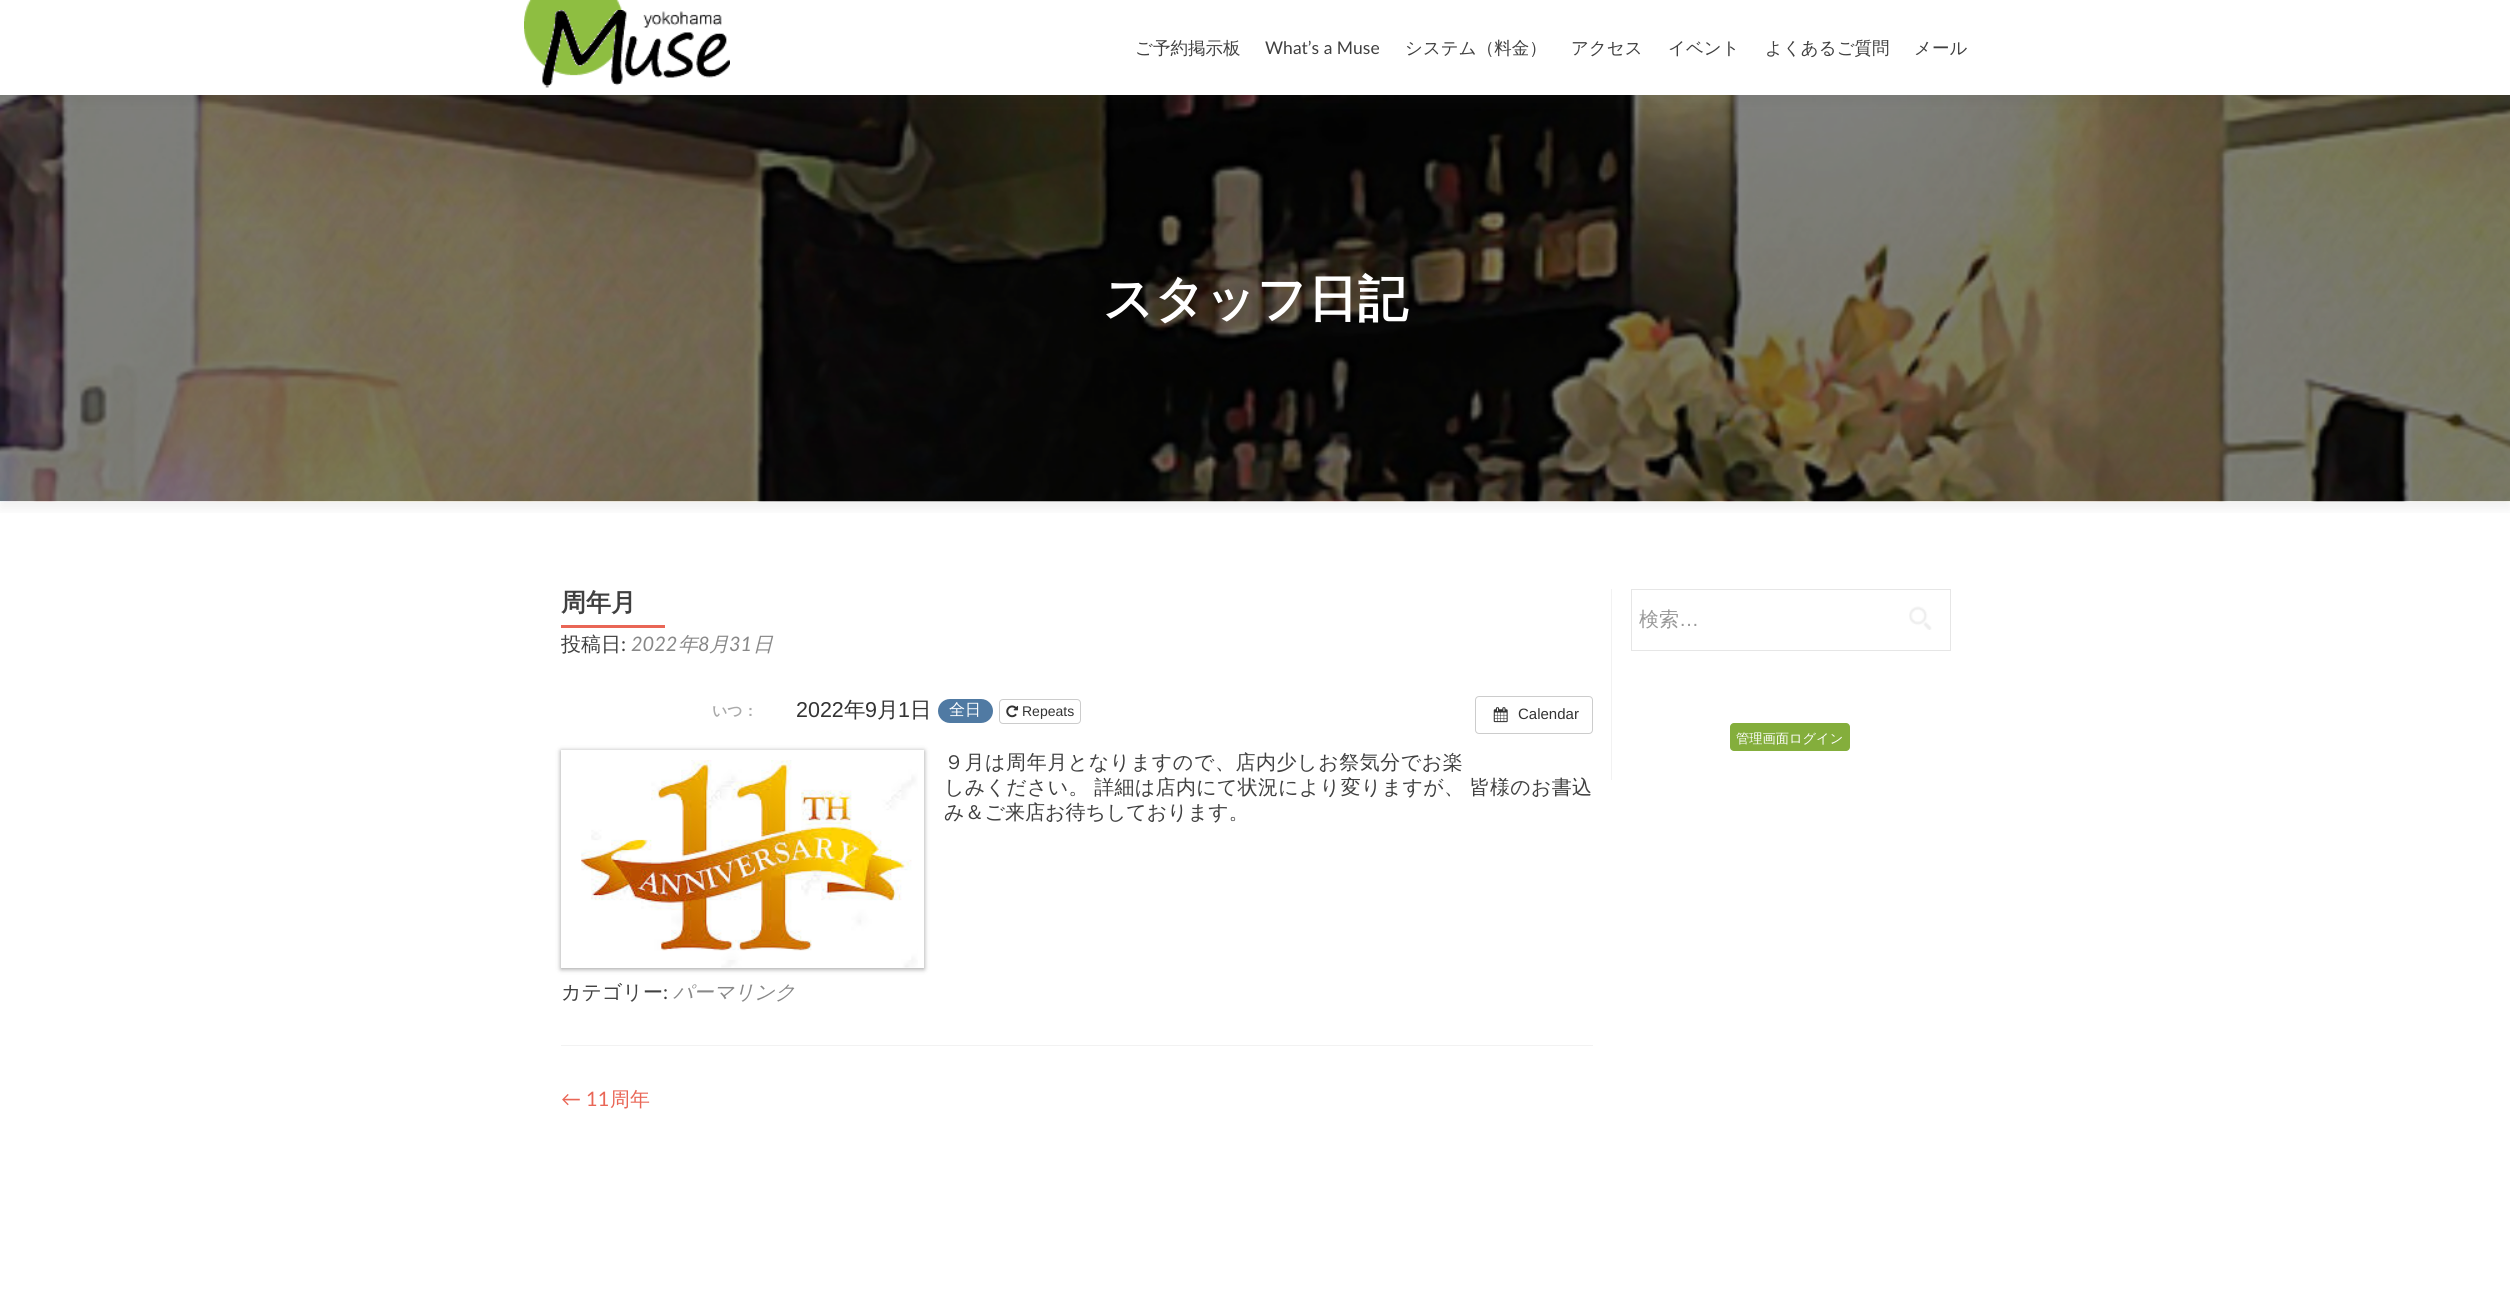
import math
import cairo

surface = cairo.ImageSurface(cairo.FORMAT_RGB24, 2510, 1297)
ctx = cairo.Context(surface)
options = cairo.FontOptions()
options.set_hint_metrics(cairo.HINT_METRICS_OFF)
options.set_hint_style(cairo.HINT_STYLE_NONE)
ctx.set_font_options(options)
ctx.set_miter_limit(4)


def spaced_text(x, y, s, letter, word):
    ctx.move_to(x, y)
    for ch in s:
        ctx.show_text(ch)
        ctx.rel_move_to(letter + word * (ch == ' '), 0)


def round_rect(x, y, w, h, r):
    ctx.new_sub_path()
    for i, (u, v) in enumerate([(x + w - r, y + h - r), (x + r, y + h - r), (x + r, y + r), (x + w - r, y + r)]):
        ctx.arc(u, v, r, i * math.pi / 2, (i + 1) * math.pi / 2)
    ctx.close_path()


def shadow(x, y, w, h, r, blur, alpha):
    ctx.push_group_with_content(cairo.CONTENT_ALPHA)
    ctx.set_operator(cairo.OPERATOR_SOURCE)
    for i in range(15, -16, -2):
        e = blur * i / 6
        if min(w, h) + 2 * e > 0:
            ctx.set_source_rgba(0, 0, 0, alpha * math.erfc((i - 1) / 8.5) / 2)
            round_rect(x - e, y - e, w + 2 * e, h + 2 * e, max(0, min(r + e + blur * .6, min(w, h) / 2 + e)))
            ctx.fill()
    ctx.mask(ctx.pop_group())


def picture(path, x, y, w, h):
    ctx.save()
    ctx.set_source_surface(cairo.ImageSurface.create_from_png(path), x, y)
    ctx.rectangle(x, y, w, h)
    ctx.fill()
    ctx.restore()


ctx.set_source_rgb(1, 1, 1)
ctx.paint()
picture("img3.png", 0, 95, 2510, 407)
ctx.set_source_rgb(0.196, 0.196, 0.196)
shadow(0, 6, 2510, 95, 0, 7, 0.08)
ctx.save()
ctx.rectangle(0, 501, 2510, 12)
ctx.clip()
shadow(0, 101, 2510, 407, 0, 7, 0.08)
ctx.restore()
ctx.set_source_rgb(1, 1, 1)
ctx.rectangle(0, 0, 2510, 95)
ctx.fill()
picture("img1.png", 524, 0, 100, 76)
picture("img2.png", 542, 10, 188, 78)
ctx.select_font_face("WenQuanYi Zen Hei Medium")
ctx.set_font_size(17.5)
ctx.set_source_rgb(0.251, 0.251, 0.251)
ctx.move_to(1135, 54)
ctx.show_text("ご予約掲示板")
ctx.select_font_face("Lato")
ctx.move_to(1265, 54)
ctx.show_text("What’s a Muse")
ctx.select_font_face("WenQuanYi Zen Hei Medium")
ctx.move_to(1405, 54)
ctx.show_text("システム（料金）")
ctx.move_to(1571, 54)
ctx.show_text("アクセス")
ctx.move_to(1668, 54)
ctx.show_text("イベント")
ctx.move_to(1765, 54)
ctx.show_text("よくあるご質問")
ctx.move_to(1914, 54)
ctx.show_text("メール")
ctx.select_font_face("WenQuanYi Zen Hei", cairo.FONT_SLANT_NORMAL, cairo.FONT_WEIGHT_BOLD)
ctx.set_font_size(50)
ctx.set_source_rgb(1, 1, 1)
ctx.move_to(1103, 316)
ctx.show_text("スタッフ日記")
ctx.set_source_rgb(0.949, 0.949, 0.949)
ctx.rectangle(561, 1045, 1032, 1)
ctx.fill()
ctx.set_font_size(25)
ctx.set_source_rgb(0.251, 0.251, 0.251)
ctx.move_to(561, 611)
ctx.show_text("周年月")
ctx.set_source_rgb(0.914, 0.4, 0.337)
ctx.rectangle(561, 625, 104, 3)
ctx.fill()
ctx.select_font_face("WenQuanYi Zen Hei Medium")
ctx.set_font_size(20)
ctx.set_source_rgb(0.251, 0.251, 0.251)
ctx.move_to(561, 651)
ctx.show_text("投稿日")
ctx.select_font_face("Lato")
ctx.move_to(621, 651)
ctx.show_text(":")
ctx.select_font_face("Lato", cairo.FONT_SLANT_ITALIC)
ctx.set_source_rgb(0.533, 0.533, 0.533)
ctx.move_to(631, 651)
ctx.show_text("2022")
ctx.select_font_face("WenQuanYi Zen Hei Medium", cairo.FONT_SLANT_ITALIC)
ctx.move_to(678, 651)
ctx.show_text("年")
ctx.select_font_face("Lato", cairo.FONT_SLANT_ITALIC)
ctx.move_to(698, 651)
ctx.show_text("8")
ctx.select_font_face("WenQuanYi Zen Hei Medium", cairo.FONT_SLANT_ITALIC)
ctx.move_to(709, 651)
ctx.show_text("月")
ctx.select_font_face("Lato", cairo.FONT_SLANT_ITALIC)
ctx.move_to(729, 651)
ctx.show_text("31")
ctx.select_font_face("WenQuanYi Zen Hei Medium", cairo.FONT_SLANT_ITALIC)
ctx.move_to(753, 651)
ctx.show_text("日")
ctx.select_font_face("WenQuanYi Zen Hei", cairo.FONT_SLANT_NORMAL, cairo.FONT_WEIGHT_BOLD)
ctx.set_font_size(15)
ctx.set_source_rgb(0.667, 0.667, 0.667)
ctx.move_to(712, 716)
ctx.show_text("いつ：")
ctx.select_font_face("Liberation Sans")
ctx.set_font_size(21.5)
ctx.set_source_rgb(0.2, 0.2, 0.2)
ctx.move_to(796, 717)
ctx.show_text("2022")
ctx.select_font_face("WenQuanYi Zen Hei Medium")
ctx.move_to(844, 717)
ctx.show_text("年")
ctx.select_font_face("Liberation Sans")
ctx.move_to(865, 717)
ctx.show_text("9")
ctx.select_font_face("WenQuanYi Zen Hei Medium")
ctx.move_to(877, 717)
ctx.show_text("月")
ctx.select_font_face("Liberation Sans")
ctx.move_to(898, 717)
ctx.show_text("1")
ctx.select_font_face("WenQuanYi Zen Hei Medium")
ctx.move_to(910, 717)
ctx.show_text("日")
ctx.set_source_rgb(0.314, 0.478, 0.639)
round_rect(938, 699, 55, 24, 12)
ctx.fill()
ctx.set_font_size(16)
ctx.set_source_rgb(1, 1, 1)
ctx.move_to(949, 715)
ctx.show_text("全日")
round_rect(999.5, 699.5, 81, 24, 3.5)
ctx.set_source_rgb(0.8, 0.8, 0.8)
ctx.set_line_width(1)
ctx.stroke()
picture("img4.png", 1006, 705, 13, 13)
ctx.select_font_face("Liberation Sans")
ctx.set_font_size(14)
ctx.set_source_rgb(0.2, 0.2, 0.2)
ctx.move_to(1022, 716)
ctx.show_text("Repeats")
round_rect(1475.5, 696.5, 117, 37, 3.5)
ctx.set_source_rgb(0.8, 0.8, 0.8)
ctx.stroke()
picture("img5.png", 1493, 707, 15, 16)
ctx.set_font_size(15)
ctx.set_source_rgb(0.2, 0.2, 0.2)
ctx.move_to(1518, 719)
ctx.show_text("Calendar")
ctx.set_source_rgb(0, 0, 0)
shadow(561, 751, 363, 218, 0, 2.5, 0.4)
ctx.set_source_rgb(1, 1, 1)
ctx.rectangle(561, 750, 363, 218)
ctx.fill()
picture("img6.png", 581, 760, 337, 208)
ctx.select_font_face("WenQuanYi Zen Hei Medium")
ctx.set_font_size(20)
ctx.set_source_rgb(0.251, 0.251, 0.251)
spaced_text(944, 769, "９月は周年月となりますので、店内少しお祭気分でお楽", 0.55, 0)
spaced_text(944, 794, "しみください。 詳細は店内にて状況により変りますが、 皆様のお書込", 0.3, -1)
ctx.move_to(944, 819)
ctx.show_text("み＆ご来店お待ちしております。")
ctx.move_to(561, 999)
ctx.show_text("カテゴリー")
ctx.select_font_face("Lato")
ctx.move_to(663, 999)
ctx.show_text(":")
ctx.select_font_face("WenQuanYi Zen Hei Medium", cairo.FONT_SLANT_ITALIC)
ctx.set_source_rgb(0.533, 0.533, 0.533)
ctx.move_to(673, 999)
ctx.show_text("パーマリンク")
ctx.select_font_face("Lato")
ctx.set_source_rgb(0.914, 0.4, 0.337)
ctx.move_to(561, 1106)
ctx.show_text("← 11")
ctx.select_font_face("WenQuanYi Zen Hei Medium")
ctx.move_to(610, 1106)
ctx.show_text("周年")
ctx.set_source_rgb(0.949, 0.949, 0.949)
ctx.rectangle(1611, 589, 1, 191)
ctx.fill()
ctx.rectangle(1631.5, 589.5, 319, 61)
ctx.set_source_rgb(0.902, 0.902, 0.902)
ctx.stroke()
ctx.set_source_rgb(0.6, 0.6, 0.6)
ctx.move_to(1639, 626)
ctx.show_text("検索")
ctx.select_font_face("Liberation Sans")
ctx.move_to(1679, 626)
ctx.show_text("…")
picture("img7.png", 1909, 606, 23, 24)
ctx.set_source_rgb(0.518, 0.682, 0.235)
round_rect(1730, 723, 120, 28, 4)
ctx.fill()
ctx.select_font_face("WenQuanYi Zen Hei Medium")
ctx.set_font_size(13.25)
ctx.set_source_rgb(1, 1, 1)
ctx.move_to(1736, 743)
ctx.show_text("管理画面ログイン")
surface.write_to_png("page.png")
